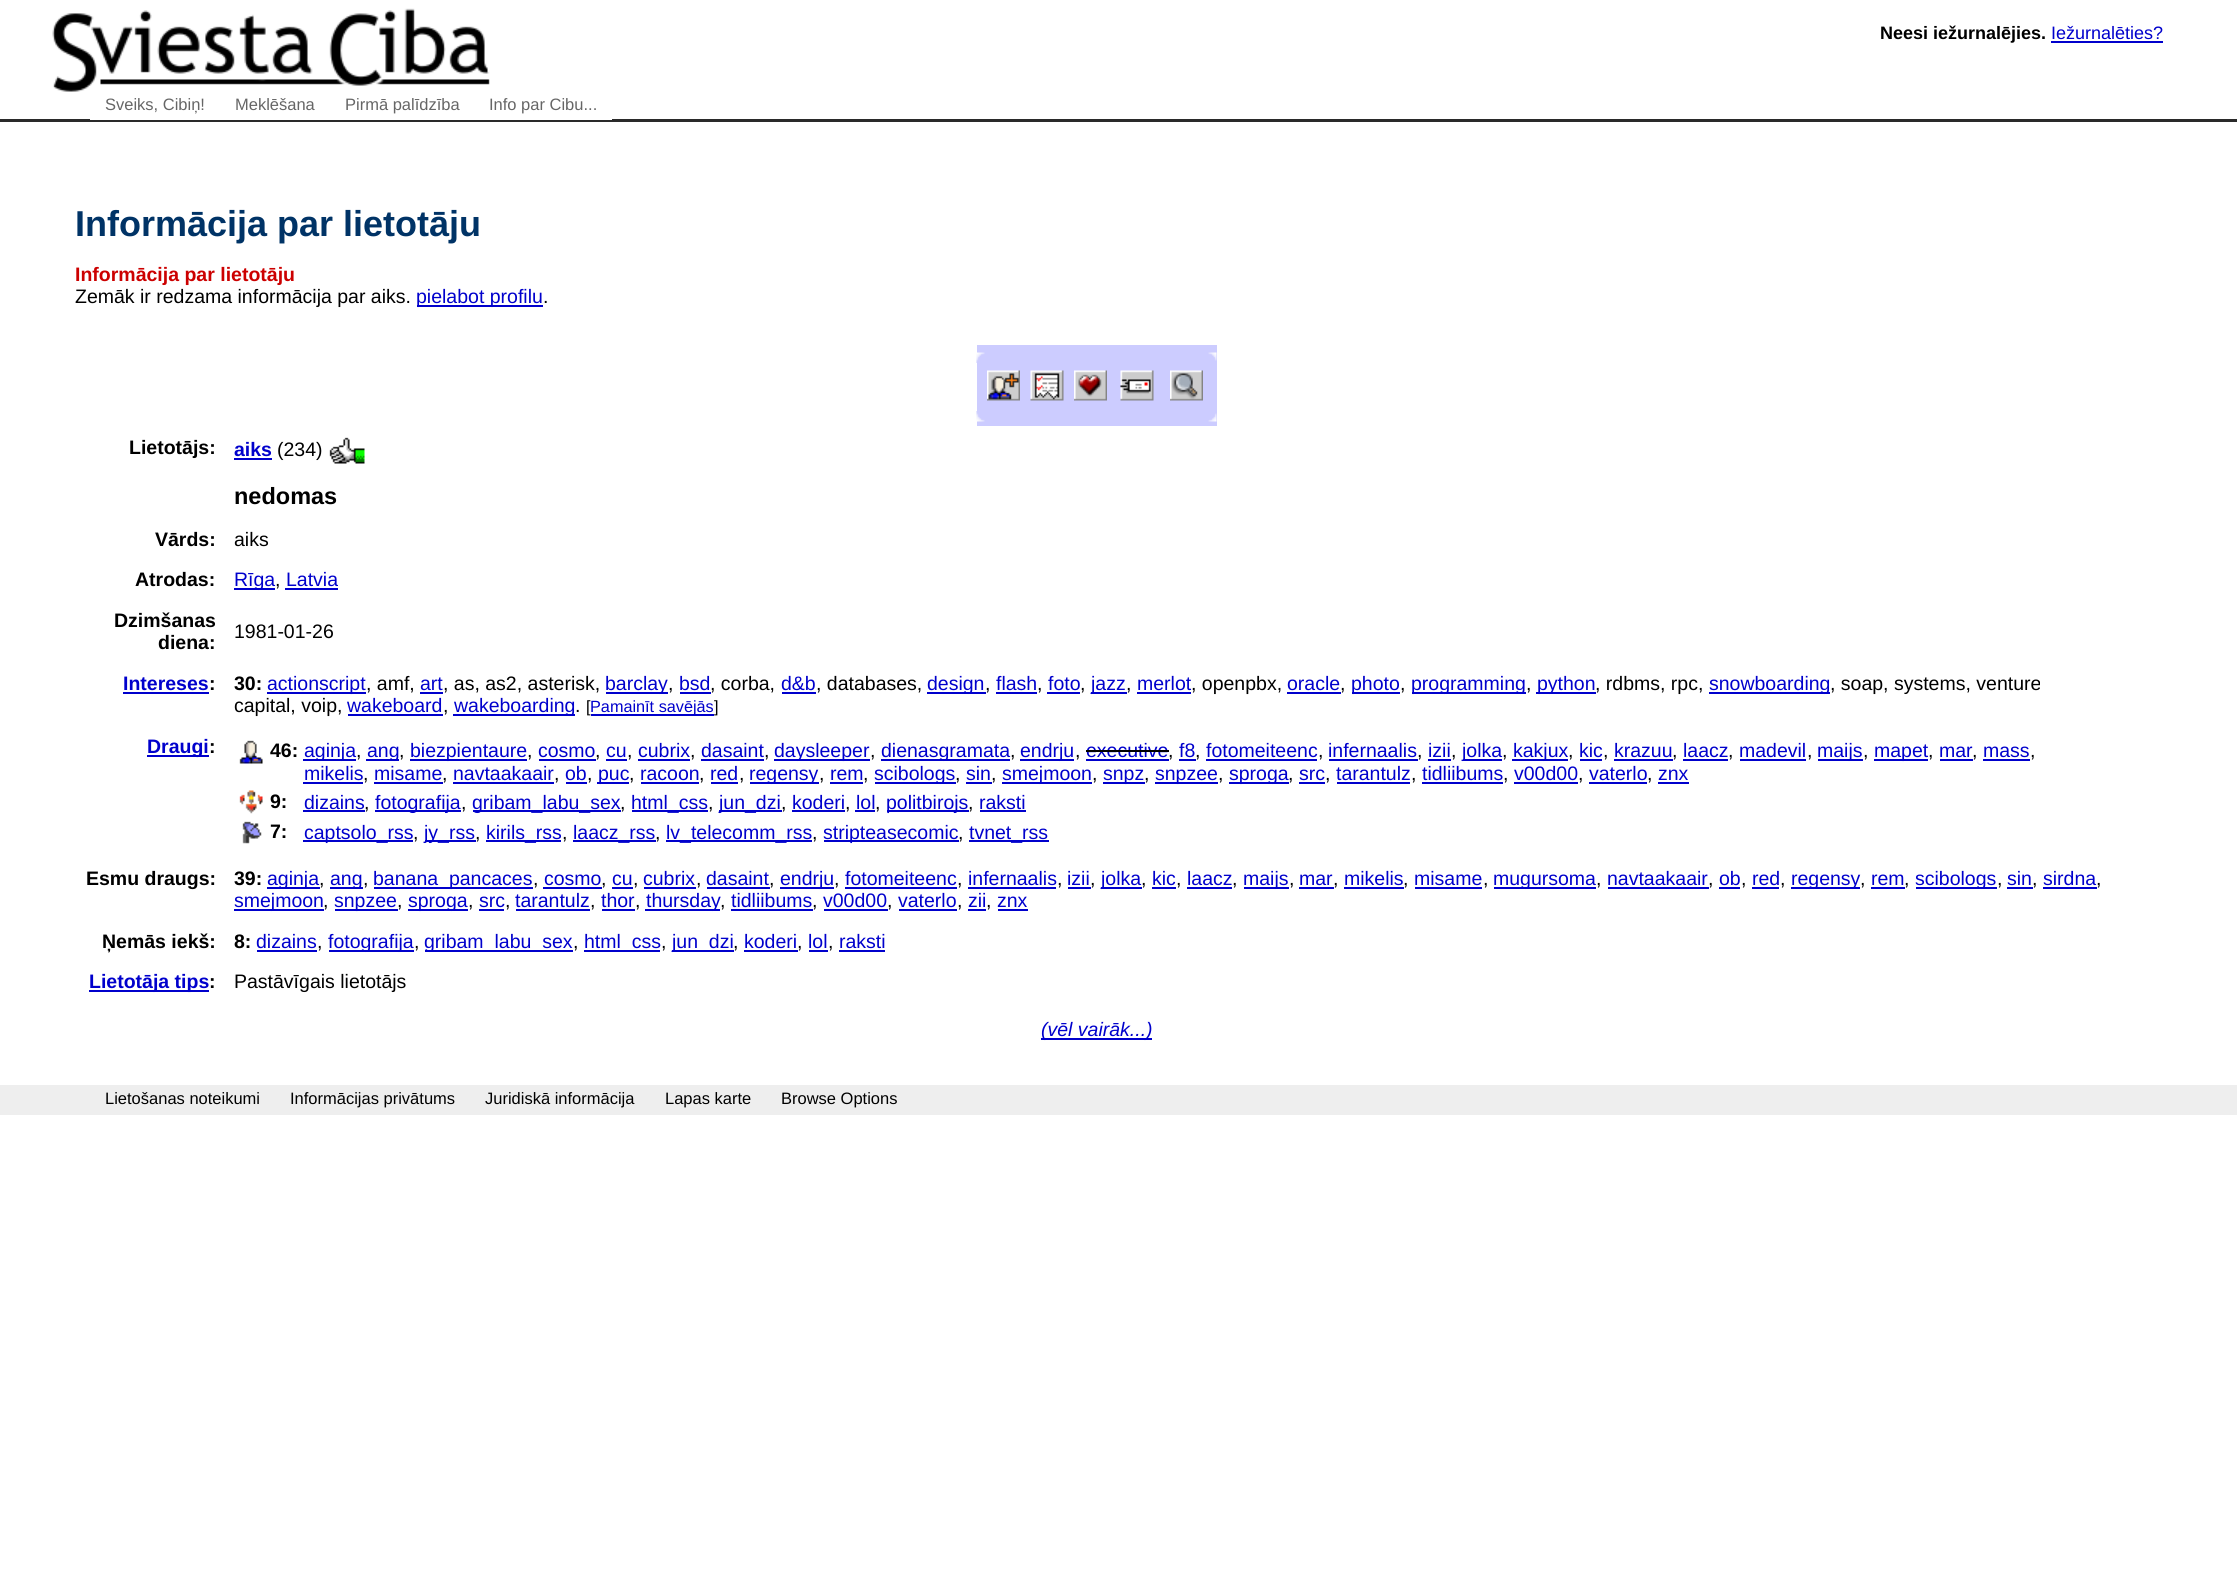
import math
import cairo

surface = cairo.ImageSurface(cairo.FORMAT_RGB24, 2237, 1586)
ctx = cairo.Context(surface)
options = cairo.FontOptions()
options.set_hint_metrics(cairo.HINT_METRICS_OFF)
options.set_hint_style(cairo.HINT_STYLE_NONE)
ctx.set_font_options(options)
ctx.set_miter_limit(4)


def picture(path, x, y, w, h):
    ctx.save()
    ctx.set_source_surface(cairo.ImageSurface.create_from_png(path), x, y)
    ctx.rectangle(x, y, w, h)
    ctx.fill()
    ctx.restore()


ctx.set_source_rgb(1, 1, 1)
ctx.paint()
ctx.set_source_rgb(0.165, 0.165, 0.165)
ctx.rectangle(0, 119, 2237, 3)
ctx.fill()
picture("img1.png", 52, 8, 438, 84)
ctx.select_font_face("Liberation Sans", cairo.FONT_SLANT_NORMAL, cairo.FONT_WEIGHT_BOLD)
ctx.set_font_size(18)
ctx.set_source_rgb(0, 0, 0)
ctx.move_to(1880, 39)
ctx.show_text("Neesi iežurnalējies.")
ctx.select_font_face("Liberation Sans")
ctx.set_source_rgb(0, 0, 0.8)
ctx.move_to(2051, 39)
ctx.show_text("Iežurnalēties?")
ctx.rectangle(2051, 41, 112, 2)
ctx.fill()
ctx.set_source_rgb(1, 1, 1)
ctx.rectangle(90, 119, 522, 1)
ctx.fill()
ctx.set_font_size(16.5)
ctx.set_source_rgb(0.4, 0.4, 0.4)
ctx.move_to(105, 110)
ctx.show_text("Sveiks, Cibiņ!")
ctx.move_to(235, 110)
ctx.show_text("Meklēšana")
ctx.move_to(345, 110)
ctx.show_text("Pirmā palīdzība")
ctx.move_to(489, 110)
ctx.show_text("Info par Cibu...")
ctx.select_font_face("Liberation Sans", cairo.FONT_SLANT_NORMAL, cairo.FONT_WEIGHT_BOLD)
ctx.set_font_size(36)
ctx.set_source_rgb(0, 0.2, 0.4)
ctx.move_to(75, 236)
ctx.show_text("Informācija par lietotāju")
ctx.set_font_size(19.5)
ctx.set_source_rgb(0.8, 0, 0)
ctx.move_to(75, 281)
ctx.show_text("Informācija par lietotāju")
ctx.select_font_face("Liberation Sans")
ctx.set_source_rgb(0, 0, 0)
ctx.move_to(75, 303)
ctx.show_text("Zemāk ir redzama informācija par aiks.")
ctx.set_source_rgb(0, 0, 0.8)
ctx.rectangle(417, 305, 126, 2)
ctx.fill()
ctx.move_to(416, 303)
ctx.show_text("pielabot profilu")
ctx.set_source_rgb(0, 0, 0)
ctx.move_to(543, 303)
ctx.show_text(".")
ctx.set_source_rgb(0.8, 0.8, 1)
ctx.rectangle(977, 345, 240, 81)
ctx.fill()
picture("img2.png", 976, 352, 9, 11)
picture("img3.png", 1208, 352, 9, 9)
picture("img4.png", 987, 370, 33, 31)
picture("img5.png", 1030, 370, 34, 31)
picture("img6.png", 1074, 370, 33, 31)
picture("img7.png", 1120, 370, 34, 31)
picture("img8.png", 1170, 370, 33, 31)
picture("img9.png", 976, 411, 9, 11)
picture("img10.png", 1208, 413, 9, 9)
ctx.select_font_face("Liberation Sans", cairo.FONT_SLANT_NORMAL, cairo.FONT_WEIGHT_BOLD)
ctx.set_source_rgb(0, 0, 0)
ctx.move_to(129, 454)
ctx.show_text("Lietotājs:")
ctx.set_source_rgb(0, 0, 0.8)
ctx.move_to(234, 456)
ctx.show_text("aiks")
ctx.rectangle(234, 458, 38, 2)
ctx.fill()
ctx.select_font_face("Liberation Sans")
ctx.set_source_rgb(0, 0, 0)
ctx.move_to(277, 456)
ctx.show_text("(234)")
picture("img11.png", 329, 437, 36, 27)
ctx.select_font_face("Liberation Sans", cairo.FONT_SLANT_NORMAL, cairo.FONT_WEIGHT_BOLD)
ctx.set_font_size(23.5)
ctx.move_to(234, 504)
ctx.show_text("nedomas")
ctx.set_font_size(19.5)
ctx.move_to(155, 546)
ctx.show_text("Vārds:")
ctx.select_font_face("Liberation Sans")
ctx.move_to(234, 546)
ctx.show_text("aiks")
ctx.select_font_face("Liberation Sans", cairo.FONT_SLANT_NORMAL, cairo.FONT_WEIGHT_BOLD)
ctx.move_to(135, 586)
ctx.show_text("Atrodas:")
ctx.set_source_rgb(0, 0, 0.8)
ctx.rectangle(234, 588, 41, 2)
ctx.fill()
ctx.select_font_face("Liberation Sans")
ctx.move_to(234, 586)
ctx.show_text("Rīga")
ctx.set_source_rgb(0, 0, 0)
ctx.move_to(275, 586)
ctx.show_text(",")
ctx.set_source_rgb(0, 0, 0.8)
ctx.move_to(286, 586)
ctx.show_text("Latvia")
ctx.rectangle(285, 588, 53, 2)
ctx.fill()
ctx.select_font_face("Liberation Sans", cairo.FONT_SLANT_NORMAL, cairo.FONT_WEIGHT_BOLD)
ctx.set_source_rgb(0, 0, 0)
ctx.move_to(114, 627)
ctx.show_text("Dzimšanas")
ctx.move_to(158, 649)
ctx.show_text("diena:")
ctx.select_font_face("Liberation Sans")
ctx.move_to(234, 638)
ctx.show_text("1981-01-26")
ctx.select_font_face("Liberation Sans", cairo.FONT_SLANT_NORMAL, cairo.FONT_WEIGHT_BOLD)
ctx.set_source_rgb(0, 0, 0.8)
ctx.move_to(123, 690)
ctx.show_text("Intereses")
ctx.set_source_rgb(0, 0, 0)
ctx.move_to(209, 690)
ctx.show_text(":")
ctx.set_source_rgb(0, 0, 0.8)
ctx.rectangle(123, 692, 86, 2)
ctx.fill()
ctx.set_source_rgb(0, 0, 0)
ctx.move_to(234, 690)
ctx.show_text("30:")
ctx.set_source_rgb(0, 0, 0.8)
ctx.rectangle(267, 692, 99, 2)
ctx.fill()
ctx.select_font_face("Liberation Sans")
ctx.move_to(267, 690)
ctx.show_text("actionscript")
ctx.set_source_rgb(0, 0, 0)
ctx.move_to(366, 690)
ctx.show_text(", amf,")
ctx.set_source_rgb(0, 0, 0.8)
ctx.move_to(420, 690)
ctx.show_text("art")
ctx.rectangle(420, 692, 23, 2)
ctx.fill()
ctx.set_source_rgb(0, 0, 0)
ctx.move_to(443, 690)
ctx.show_text(", as, as2, asterisk,")
ctx.set_source_rgb(0, 0, 0.8)
ctx.rectangle(606, 692, 62, 2)
ctx.fill()
ctx.move_to(605, 690)
ctx.show_text("barclay")
ctx.set_source_rgb(0, 0, 0)
ctx.move_to(668, 690)
ctx.show_text(",")
ctx.set_source_rgb(0, 0, 0.8)
ctx.move_to(679, 690)
ctx.show_text("bsd")
ctx.rectangle(680, 692, 31, 2)
ctx.fill()
ctx.set_source_rgb(0, 0, 0)
ctx.move_to(710, 690)
ctx.show_text(", corba,")
ctx.set_source_rgb(0, 0, 0.8)
ctx.move_to(781, 690)
ctx.show_text("d&b")
ctx.rectangle(782, 692, 34, 2)
ctx.fill()
ctx.set_source_rgb(0, 0, 0)
ctx.move_to(816, 690)
ctx.show_text(", databases,")
ctx.set_source_rgb(0, 0, 0.8)
ctx.rectangle(927, 692, 59, 2)
ctx.fill()
ctx.move_to(927, 690)
ctx.show_text("design")
ctx.set_source_rgb(0, 0, 0)
ctx.move_to(985, 690)
ctx.show_text(",")
ctx.set_source_rgb(0, 0, 0.8)
ctx.move_to(996, 690)
ctx.show_text("flash")
ctx.rectangle(996, 692, 41, 2)
ctx.fill()
ctx.set_source_rgb(0, 0, 0)
ctx.move_to(1037, 690)
ctx.show_text(",")
ctx.set_source_rgb(0, 0, 0.8)
ctx.move_to(1048, 690)
ctx.show_text("foto")
ctx.rectangle(1047, 692, 33, 2)
ctx.fill()
ctx.set_source_rgb(0, 0, 0)
ctx.move_to(1080, 690)
ctx.show_text(",")
ctx.set_source_rgb(0, 0, 0.8)
ctx.rectangle(1091, 692, 36, 2)
ctx.fill()
ctx.move_to(1091, 690)
ctx.show_text("jazz")
ctx.set_source_rgb(0, 0, 0)
ctx.move_to(1126, 690)
ctx.show_text(",")
ctx.set_source_rgb(0, 0, 0.8)
ctx.move_to(1137, 690)
ctx.show_text("merlot")
ctx.rectangle(1137, 692, 54, 2)
ctx.fill()
ctx.set_source_rgb(0, 0, 0)
ctx.move_to(1191, 690)
ctx.show_text(", openpbx,")
ctx.set_source_rgb(0, 0, 0.8)
ctx.move_to(1287, 690)
ctx.show_text("oracle")
ctx.rectangle(1287, 692, 54, 2)
ctx.fill()
ctx.set_source_rgb(0, 0, 0)
ctx.move_to(1340, 690)
ctx.show_text(",")
ctx.set_source_rgb(0, 0, 0.8)
ctx.rectangle(1352, 692, 48, 2)
ctx.fill()
ctx.move_to(1351, 690)
ctx.show_text("photo")
ctx.set_source_rgb(0, 0, 0)
ctx.move_to(1400, 690)
ctx.show_text(",")
ctx.set_source_rgb(0, 0, 0.8)
ctx.rectangle(1412, 692, 114, 2)
ctx.fill()
ctx.move_to(1411, 690)
ctx.show_text("programming")
ctx.set_source_rgb(0, 0, 0)
ctx.move_to(1526, 690)
ctx.show_text(",")
ctx.set_source_rgb(0, 0, 0.8)
ctx.rectangle(1536, 692, 60, 2)
ctx.fill()
ctx.move_to(1537, 690)
ctx.show_text("python")
ctx.set_source_rgb(0, 0, 0)
ctx.move_to(1595, 690)
ctx.show_text(", rdbms, rpc,")
ctx.set_source_rgb(0, 0, 0.8)
ctx.rectangle(1709, 692, 121, 2)
ctx.fill()
ctx.move_to(1709, 690)
ctx.show_text("snowboarding")
ctx.set_source_rgb(0, 0, 0)
ctx.move_to(1830, 690)
ctx.show_text(", soap, systems, venture")
ctx.move_to(234, 712)
ctx.show_text("capital, voip,")
ctx.set_source_rgb(0, 0, 0.8)
ctx.move_to(347, 712)
ctx.show_text("wakeboard")
ctx.rectangle(348, 714, 95, 2)
ctx.fill()
ctx.set_source_rgb(0, 0, 0)
ctx.move_to(443, 712)
ctx.show_text(",")
ctx.set_source_rgb(0, 0, 0.8)
ctx.rectangle(453, 714, 122, 2)
ctx.fill()
ctx.move_to(454, 712)
ctx.show_text("wakeboarding")
ctx.set_source_rgb(0, 0, 0)
ctx.move_to(575, 712)
ctx.show_text(".")
ctx.set_font_size(16.25)
ctx.move_to(586, 712)
ctx.show_text("[")
ctx.set_source_rgb(0, 0, 0.8)
ctx.rectangle(591, 714, 123, 2)
ctx.fill()
ctx.move_to(590, 712)
ctx.show_text("Pamainīt savējās")
ctx.set_source_rgb(0, 0, 0)
ctx.move_to(714, 712)
ctx.show_text("]")
ctx.set_source_rgb(0, 0, 0.8)
ctx.rectangle(147, 755, 62, 2)
ctx.fill()
ctx.select_font_face("Liberation Sans", cairo.FONT_SLANT_NORMAL, cairo.FONT_WEIGHT_BOLD)
ctx.set_font_size(19.5)
ctx.move_to(147, 753)
ctx.show_text("Draugi")
ctx.set_source_rgb(0, 0, 0)
ctx.move_to(209, 753)
ctx.show_text(":")
picture("img12.png", 239, 740, 24, 24)
ctx.move_to(270, 757)
ctx.show_text("46:")
ctx.set_source_rgb(0, 0, 0.8)
ctx.rectangle(303, 759, 53, 2)
ctx.fill()
ctx.select_font_face("Liberation Sans")
ctx.move_to(304, 757)
ctx.show_text("aginja")
ctx.set_source_rgb(0, 0, 0)
ctx.move_to(356, 757)
ctx.show_text(",")
ctx.set_source_rgb(0, 0, 0.8)
ctx.rectangle(366, 759, 33, 2)
ctx.fill()
ctx.move_to(367, 757)
ctx.show_text("ang")
ctx.set_source_rgb(0, 0, 0)
ctx.move_to(399, 757)
ctx.show_text(",")
ctx.set_source_rgb(0, 0, 0.8)
ctx.rectangle(410, 759, 117, 2)
ctx.fill()
ctx.move_to(410, 757)
ctx.show_text("biezpientaure")
ctx.set_source_rgb(0, 0, 0)
ctx.move_to(527, 757)
ctx.show_text(",")
ctx.set_source_rgb(0, 0, 0.8)
ctx.move_to(538, 757)
ctx.show_text("cosmo")
ctx.rectangle(539, 759, 57, 2)
ctx.fill()
ctx.set_source_rgb(0, 0, 0)
ctx.move_to(595, 757)
ctx.show_text(",")
ctx.set_source_rgb(0, 0, 0.8)
ctx.move_to(606, 757)
ctx.show_text("cu")
ctx.rectangle(606, 759, 21, 2)
ctx.fill()
ctx.set_source_rgb(0, 0, 0)
ctx.move_to(627, 757)
ctx.show_text(",")
ctx.set_source_rgb(0, 0, 0.8)
ctx.move_to(638, 757)
ctx.show_text("cubrix")
ctx.rectangle(638, 759, 52, 2)
ctx.fill()
ctx.set_source_rgb(0, 0, 0)
ctx.move_to(690, 757)
ctx.show_text(",")
ctx.set_source_rgb(0, 0, 0.8)
ctx.move_to(701, 757)
ctx.show_text("dasaint")
ctx.rectangle(701, 759, 63, 2)
ctx.fill()
ctx.set_source_rgb(0, 0, 0)
ctx.move_to(764, 757)
ctx.show_text(",")
ctx.set_source_rgb(0, 0, 0.8)
ctx.rectangle(774, 759, 96, 2)
ctx.fill()
ctx.move_to(774, 757)
ctx.show_text("daysleeper")
ctx.set_source_rgb(0, 0, 0)
ctx.move_to(870, 757)
ctx.show_text(",")
ctx.set_source_rgb(0, 0, 0.8)
ctx.rectangle(881, 759, 129, 2)
ctx.fill()
ctx.move_to(881, 757)
ctx.show_text("dienasgramata")
ctx.set_source_rgb(0, 0, 0)
ctx.move_to(1010, 757)
ctx.show_text(",")
ctx.set_source_rgb(0, 0, 0.8)
ctx.rectangle(1020, 759, 54, 2)
ctx.fill()
ctx.move_to(1020, 757)
ctx.show_text("endrju")
ctx.set_source_rgb(0, 0, 0)
ctx.move_to(1075, 757)
ctx.show_text(",")
ctx.set_source_rgb(0, 0, 0.8)
ctx.move_to(1086, 757)
ctx.show_text("executive")
ctx.rectangle(1086, 759, 83, 2)
ctx.fill()
ctx.set_source_rgb(0, 0, 0)
ctx.rectangle(1086, 750, 83, 2)
ctx.fill()
ctx.move_to(1168, 757)
ctx.show_text(",")
ctx.set_source_rgb(0, 0, 0.8)
ctx.move_to(1179, 757)
ctx.show_text("f8")
ctx.rectangle(1179, 759, 17, 2)
ctx.fill()
ctx.set_source_rgb(0, 0, 0)
ctx.move_to(1195, 757)
ctx.show_text(",")
ctx.set_source_rgb(0, 0, 0.8)
ctx.move_to(1206, 757)
ctx.show_text("fotomeiteenc")
ctx.rectangle(1206, 759, 111, 2)
ctx.fill()
ctx.set_source_rgb(0, 0, 0)
ctx.move_to(1318, 757)
ctx.show_text(",")
ctx.set_source_rgb(0, 0, 0.8)
ctx.move_to(1328, 757)
ctx.show_text("infernaalis")
ctx.rectangle(1329, 759, 89, 2)
ctx.fill()
ctx.set_source_rgb(0, 0, 0)
ctx.move_to(1417, 757)
ctx.show_text(",")
ctx.set_source_rgb(0, 0, 0.8)
ctx.move_to(1428, 757)
ctx.show_text("izii")
ctx.rectangle(1428, 759, 23, 2)
ctx.fill()
ctx.set_source_rgb(0, 0, 0)
ctx.move_to(1451, 757)
ctx.show_text(",")
ctx.set_source_rgb(0, 0, 0.8)
ctx.rectangle(1463, 759, 39, 2)
ctx.fill()
ctx.move_to(1462, 757)
ctx.show_text("jolka")
ctx.set_source_rgb(0, 0, 0)
ctx.move_to(1502, 757)
ctx.show_text(",")
ctx.set_source_rgb(0, 0, 0.8)
ctx.rectangle(1512, 759, 56, 2)
ctx.fill()
ctx.move_to(1513, 757)
ctx.show_text("kakjux")
ctx.set_source_rgb(0, 0, 0)
ctx.move_to(1568, 757)
ctx.show_text(",")
ctx.set_source_rgb(0, 0, 0.8)
ctx.move_to(1579, 757)
ctx.show_text("kic")
ctx.rectangle(1580, 759, 22, 2)
ctx.fill()
ctx.set_source_rgb(0, 0, 0)
ctx.move_to(1603, 757)
ctx.show_text(",")
ctx.set_source_rgb(0, 0, 0.8)
ctx.move_to(1614, 757)
ctx.show_text("krazuu")
ctx.rectangle(1614, 759, 59, 2)
ctx.fill()
ctx.set_source_rgb(0, 0, 0)
ctx.move_to(1672, 757)
ctx.show_text(",")
ctx.set_source_rgb(0, 0, 0.8)
ctx.move_to(1683, 757)
ctx.show_text("laacz")
ctx.rectangle(1683, 759, 45, 2)
ctx.fill()
ctx.set_source_rgb(0, 0, 0)
ctx.move_to(1728, 757)
ctx.show_text(",")
ctx.set_source_rgb(0, 0, 0.8)
ctx.move_to(1739, 757)
ctx.show_text("madevil")
ctx.rectangle(1740, 759, 66, 2)
ctx.fill()
ctx.set_source_rgb(0, 0, 0)
ctx.move_to(1807, 757)
ctx.show_text(",")
ctx.set_source_rgb(0, 0, 0.8)
ctx.rectangle(1818, 759, 45, 2)
ctx.fill()
ctx.move_to(1817, 757)
ctx.show_text("maijs")
ctx.set_source_rgb(0, 0, 0)
ctx.move_to(1863, 757)
ctx.show_text(",")
ctx.set_source_rgb(0, 0, 0.8)
ctx.rectangle(1874, 759, 54, 2)
ctx.fill()
ctx.move_to(1874, 757)
ctx.show_text("mapet")
ctx.set_source_rgb(0, 0, 0)
ctx.move_to(1928, 757)
ctx.show_text(",")
ctx.set_source_rgb(0, 0, 0.8)
ctx.move_to(1939, 757)
ctx.show_text("mar")
ctx.rectangle(1940, 759, 33, 2)
ctx.fill()
ctx.set_source_rgb(0, 0, 0)
ctx.move_to(1972, 757)
ctx.show_text(",")
ctx.set_source_rgb(0, 0, 0.8)
ctx.move_to(1983, 757)
ctx.show_text("mass")
ctx.rectangle(1983, 759, 47, 2)
ctx.fill()
ctx.set_source_rgb(0, 0, 0)
ctx.move_to(2030, 757)
ctx.show_text(",")
ctx.set_source_rgb(0, 0, 0.8)
ctx.move_to(304, 780)
ctx.show_text("mikelis")
ctx.rectangle(303, 782, 60, 2)
ctx.fill()
ctx.set_source_rgb(0, 0, 0)
ctx.move_to(363, 780)
ctx.show_text(",")
ctx.set_source_rgb(0, 0, 0.8)
ctx.move_to(374, 780)
ctx.show_text("misame")
ctx.rectangle(374, 782, 69, 2)
ctx.fill()
ctx.set_source_rgb(0, 0, 0)
ctx.move_to(442, 780)
ctx.show_text(",")
ctx.set_source_rgb(0, 0, 0.8)
ctx.move_to(453, 780)
ctx.show_text("navtaakaair")
ctx.rectangle(453, 782, 101, 2)
ctx.fill()
ctx.set_source_rgb(0, 0, 0)
ctx.move_to(554, 780)
ctx.show_text(",")
ctx.set_source_rgb(0, 0, 0.8)
ctx.move_to(565, 780)
ctx.show_text("ob")
ctx.rectangle(566, 782, 21, 2)
ctx.fill()
ctx.set_source_rgb(0, 0, 0)
ctx.move_to(587, 780)
ctx.show_text(",")
ctx.set_source_rgb(0, 0, 0.8)
ctx.rectangle(597, 782, 32, 2)
ctx.fill()
ctx.move_to(598, 780)
ctx.show_text("puc")
ctx.set_source_rgb(0, 0, 0)
ctx.move_to(629, 780)
ctx.show_text(",")
ctx.set_source_rgb(0, 0, 0.8)
ctx.move_to(640, 780)
ctx.show_text("racoon")
ctx.rectangle(641, 782, 58, 2)
ctx.fill()
ctx.set_source_rgb(0, 0, 0)
ctx.move_to(699, 780)
ctx.show_text(",")
ctx.set_source_rgb(0, 0, 0.8)
ctx.move_to(710, 780)
ctx.show_text("red")
ctx.rectangle(711, 782, 27, 2)
ctx.fill()
ctx.set_source_rgb(0, 0, 0)
ctx.move_to(739, 780)
ctx.show_text(",")
ctx.set_source_rgb(0, 0, 0.8)
ctx.rectangle(750, 782, 69, 2)
ctx.fill()
ctx.move_to(749, 780)
ctx.show_text("regensy")
ctx.set_source_rgb(0, 0, 0)
ctx.move_to(819, 780)
ctx.show_text(",")
ctx.set_source_rgb(0, 0, 0.8)
ctx.move_to(830, 780)
ctx.show_text("rem")
ctx.rectangle(830, 782, 33, 2)
ctx.fill()
ctx.set_source_rgb(0, 0, 0)
ctx.move_to(863, 780)
ctx.show_text(",")
ctx.set_source_rgb(0, 0, 0.8)
ctx.rectangle(875, 782, 81, 2)
ctx.fill()
ctx.move_to(874, 780)
ctx.show_text("scibologs")
ctx.set_source_rgb(0, 0, 0)
ctx.move_to(955, 780)
ctx.show_text(",")
ctx.set_source_rgb(0, 0, 0.8)
ctx.move_to(966, 780)
ctx.show_text("sin")
ctx.rectangle(966, 782, 26, 2)
ctx.fill()
ctx.set_source_rgb(0, 0, 0)
ctx.move_to(991, 780)
ctx.show_text(",")
ctx.set_source_rgb(0, 0, 0.8)
ctx.rectangle(1002, 782, 90, 2)
ctx.fill()
ctx.move_to(1002, 780)
ctx.show_text("smejmoon")
ctx.set_source_rgb(0, 0, 0)
ctx.move_to(1092, 780)
ctx.show_text(",")
ctx.set_source_rgb(0, 0, 0.8)
ctx.rectangle(1103, 782, 42, 2)
ctx.fill()
ctx.move_to(1103, 780)
ctx.show_text("snpz")
ctx.set_source_rgb(0, 0, 0)
ctx.move_to(1144, 780)
ctx.show_text(",")
ctx.set_source_rgb(0, 0, 0.8)
ctx.rectangle(1155, 782, 63, 2)
ctx.fill()
ctx.move_to(1155, 780)
ctx.show_text("snpzee")
ctx.set_source_rgb(0, 0, 0)
ctx.move_to(1218, 780)
ctx.show_text(",")
ctx.set_source_rgb(0, 0, 0.8)
ctx.rectangle(1229, 782, 60, 2)
ctx.fill()
ctx.move_to(1229, 780)
ctx.show_text("sproga")
ctx.set_source_rgb(0, 0, 0)
ctx.move_to(1288, 780)
ctx.show_text(",")
ctx.set_source_rgb(0, 0, 0.8)
ctx.move_to(1299, 780)
ctx.show_text("src")
ctx.rectangle(1299, 782, 26, 2)
ctx.fill()
ctx.set_source_rgb(0, 0, 0)
ctx.move_to(1325, 780)
ctx.show_text(",")
ctx.set_source_rgb(0, 0, 0.8)
ctx.move_to(1336, 780)
ctx.show_text("tarantulz")
ctx.rectangle(1337, 782, 73, 2)
ctx.fill()
ctx.set_source_rgb(0, 0, 0)
ctx.move_to(1411, 780)
ctx.show_text(",")
ctx.set_source_rgb(0, 0, 0.8)
ctx.move_to(1422, 780)
ctx.show_text("tidliibums")
ctx.rectangle(1422, 782, 81, 2)
ctx.fill()
ctx.set_source_rgb(0, 0, 0)
ctx.move_to(1503, 780)
ctx.show_text(",")
ctx.set_source_rgb(0, 0, 0.8)
ctx.move_to(1514, 780)
ctx.show_text("v00d00")
ctx.rectangle(1514, 782, 64, 2)
ctx.fill()
ctx.set_source_rgb(0, 0, 0)
ctx.move_to(1578, 780)
ctx.show_text(",")
ctx.set_source_rgb(0, 0, 0.8)
ctx.move_to(1589, 780)
ctx.show_text("vaterlo")
ctx.rectangle(1589, 782, 58, 2)
ctx.fill()
ctx.set_source_rgb(0, 0, 0)
ctx.move_to(1647, 780)
ctx.show_text(",")
ctx.set_source_rgb(0, 0, 0.8)
ctx.move_to(1658, 780)
ctx.show_text("znx")
ctx.rectangle(1658, 782, 31, 2)
ctx.fill()
picture("img13.png", 239, 790, 24, 24)
ctx.select_font_face("Liberation Sans", cairo.FONT_SLANT_NORMAL, cairo.FONT_WEIGHT_BOLD)
ctx.set_source_rgb(0, 0, 0)
ctx.move_to(270, 808)
ctx.show_text("9:")
ctx.select_font_face("Liberation Sans")
ctx.set_source_rgb(0, 0, 0.8)
ctx.move_to(304, 809)
ctx.show_text("dizains")
ctx.rectangle(303, 810, 62, 2)
ctx.fill()
ctx.set_source_rgb(0, 0, 0)
ctx.move_to(364, 809)
ctx.show_text(",")
ctx.set_source_rgb(0, 0, 0.8)
ctx.rectangle(375, 810, 86, 2)
ctx.fill()
ctx.move_to(375, 809)
ctx.show_text("fotografija")
ctx.set_source_rgb(0, 0, 0)
ctx.move_to(461, 809)
ctx.show_text(",")
ctx.set_source_rgb(0, 0, 0.8)
ctx.rectangle(473, 810, 148, 2)
ctx.fill()
ctx.move_to(472, 809)
ctx.show_text("gribam_labu_sex")
ctx.set_source_rgb(0, 0, 0)
ctx.move_to(620, 809)
ctx.show_text(",")
ctx.set_source_rgb(0, 0, 0.8)
ctx.rectangle(632, 810, 76, 2)
ctx.fill()
ctx.move_to(631, 809)
ctx.show_text("html_css")
ctx.set_source_rgb(0, 0, 0)
ctx.move_to(708, 809)
ctx.show_text(",")
ctx.set_source_rgb(0, 0, 0.8)
ctx.rectangle(719, 810, 63, 2)
ctx.fill()
ctx.move_to(719, 809)
ctx.show_text("jun_dzi")
ctx.set_source_rgb(0, 0, 0)
ctx.move_to(781, 809)
ctx.show_text(",")
ctx.set_source_rgb(0, 0, 0.8)
ctx.move_to(792, 809)
ctx.show_text("koderi")
ctx.rectangle(792, 810, 53, 2)
ctx.fill()
ctx.set_source_rgb(0, 0, 0)
ctx.move_to(845, 809)
ctx.show_text(",")
ctx.set_source_rgb(0, 0, 0.8)
ctx.move_to(856, 809)
ctx.show_text("lol")
ctx.rectangle(855, 810, 20, 2)
ctx.fill()
ctx.set_source_rgb(0, 0, 0)
ctx.move_to(875, 809)
ctx.show_text(",")
ctx.set_source_rgb(0, 0, 0.8)
ctx.rectangle(887, 810, 82, 2)
ctx.fill()
ctx.move_to(886, 809)
ctx.show_text("politbirojs")
ctx.set_source_rgb(0, 0, 0)
ctx.move_to(968, 809)
ctx.show_text(",")
ctx.set_source_rgb(0, 0, 0.8)
ctx.move_to(979, 809)
ctx.show_text("raksti")
ctx.rectangle(980, 810, 46, 2)
ctx.fill()
picture("img14.png", 242, 821, 20, 23)
ctx.select_font_face("Liberation Sans", cairo.FONT_SLANT_NORMAL, cairo.FONT_WEIGHT_BOLD)
ctx.set_source_rgb(0, 0, 0)
ctx.move_to(270, 838)
ctx.show_text("7:")
ctx.set_source_rgb(0, 0, 0.8)
ctx.rectangle(303, 840, 110, 2)
ctx.fill()
ctx.select_font_face("Liberation Sans")
ctx.move_to(304, 839)
ctx.show_text("captsolo_rss")
ctx.set_source_rgb(0, 0, 0)
ctx.move_to(413, 839)
ctx.show_text(",")
ctx.set_source_rgb(0, 0, 0.8)
ctx.rectangle(425, 840, 51, 2)
ctx.fill()
ctx.move_to(424, 839)
ctx.show_text("jy_rss")
ctx.set_source_rgb(0, 0, 0)
ctx.move_to(475, 839)
ctx.show_text(",")
ctx.set_source_rgb(0, 0, 0.8)
ctx.rectangle(486, 840, 75, 2)
ctx.fill()
ctx.move_to(486, 839)
ctx.show_text("kirils_rss")
ctx.set_source_rgb(0, 0, 0)
ctx.move_to(562, 839)
ctx.show_text(",")
ctx.set_source_rgb(0, 0, 0.8)
ctx.rectangle(573, 840, 83, 2)
ctx.fill()
ctx.move_to(573, 839)
ctx.show_text("laacz_rss")
ctx.set_source_rgb(0, 0, 0)
ctx.move_to(655, 839)
ctx.show_text(",")
ctx.set_source_rgb(0, 0, 0.8)
ctx.rectangle(666, 840, 146, 2)
ctx.fill()
ctx.move_to(666, 839)
ctx.show_text("lv_telecomm_rss")
ctx.set_source_rgb(0, 0, 0)
ctx.move_to(812, 839)
ctx.show_text(",")
ctx.set_source_rgb(0, 0, 0.8)
ctx.rectangle(824, 840, 135, 2)
ctx.fill()
ctx.move_to(823, 839)
ctx.show_text("stripteasecomic")
ctx.set_source_rgb(0, 0, 0)
ctx.move_to(958, 839)
ctx.show_text(",")
ctx.set_source_rgb(0, 0, 0.8)
ctx.rectangle(969, 840, 80, 2)
ctx.fill()
ctx.move_to(969, 839)
ctx.show_text("tvnet_rss")
ctx.select_font_face("Liberation Sans", cairo.FONT_SLANT_NORMAL, cairo.FONT_WEIGHT_BOLD)
ctx.set_source_rgb(0, 0, 0)
ctx.move_to(86, 885)
ctx.show_text("Esmu draugs:")
ctx.move_to(234, 885)
ctx.show_text("39:")
ctx.set_source_rgb(0, 0, 0.8)
ctx.rectangle(267, 887, 53, 2)
ctx.fill()
ctx.select_font_face("Liberation Sans")
ctx.move_to(267, 885)
ctx.show_text("aginja")
ctx.set_source_rgb(0, 0, 0)
ctx.move_to(319, 885)
ctx.show_text(",")
ctx.set_source_rgb(0, 0, 0.8)
ctx.rectangle(330, 887, 33, 2)
ctx.fill()
ctx.move_to(330, 885)
ctx.show_text("ang")
ctx.set_source_rgb(0, 0, 0)
ctx.move_to(363, 885)
ctx.show_text(",")
ctx.set_source_rgb(0, 0, 0.8)
ctx.rectangle(374, 887, 159, 2)
ctx.fill()
ctx.move_to(373, 885)
ctx.show_text("banana_pancaces")
ctx.set_source_rgb(0, 0, 0)
ctx.move_to(533, 885)
ctx.show_text(",")
ctx.set_source_rgb(0, 0, 0.8)
ctx.move_to(544, 885)
ctx.show_text("cosmo")
ctx.rectangle(543, 887, 59, 2)
ctx.fill()
ctx.set_source_rgb(0, 0, 0)
ctx.move_to(601, 885)
ctx.show_text(",")
ctx.set_source_rgb(0, 0, 0.8)
ctx.move_to(612, 885)
ctx.show_text("cu")
ctx.rectangle(612, 887, 21, 2)
ctx.fill()
ctx.set_source_rgb(0, 0, 0)
ctx.move_to(633, 885)
ctx.show_text(",")
ctx.set_source_rgb(0, 0, 0.8)
ctx.move_to(643, 885)
ctx.show_text("cubrix")
ctx.rectangle(644, 887, 52, 2)
ctx.fill()
ctx.set_source_rgb(0, 0, 0)
ctx.move_to(696, 885)
ctx.show_text(",")
ctx.set_source_rgb(0, 0, 0.8)
ctx.move_to(706, 885)
ctx.show_text("dasaint")
ctx.rectangle(707, 887, 63, 2)
ctx.fill()
ctx.set_source_rgb(0, 0, 0)
ctx.move_to(769, 885)
ctx.show_text(",")
ctx.set_source_rgb(0, 0, 0.8)
ctx.rectangle(780, 887, 54, 2)
ctx.fill()
ctx.move_to(780, 885)
ctx.show_text("endrju")
ctx.set_source_rgb(0, 0, 0)
ctx.move_to(834, 885)
ctx.show_text(",")
ctx.set_source_rgb(0, 0, 0.8)
ctx.move_to(845, 885)
ctx.show_text("fotomeiteenc")
ctx.rectangle(845, 887, 112, 2)
ctx.fill()
ctx.set_source_rgb(0, 0, 0)
ctx.move_to(957, 885)
ctx.show_text(",")
ctx.set_source_rgb(0, 0, 0.8)
ctx.move_to(968, 885)
ctx.show_text("infernaalis")
ctx.rectangle(968, 887, 88, 2)
ctx.fill()
ctx.set_source_rgb(0, 0, 0)
ctx.move_to(1057, 885)
ctx.show_text(",")
ctx.set_source_rgb(0, 0, 0.8)
ctx.move_to(1067, 885)
ctx.show_text("izii")
ctx.rectangle(1068, 887, 23, 2)
ctx.fill()
ctx.set_source_rgb(0, 0, 0)
ctx.move_to(1090, 885)
ctx.show_text(",")
ctx.set_source_rgb(0, 0, 0.8)
ctx.rectangle(1101, 887, 41, 2)
ctx.fill()
ctx.move_to(1101, 885)
ctx.show_text("jolka")
ctx.set_source_rgb(0, 0, 0)
ctx.move_to(1141, 885)
ctx.show_text(",")
ctx.set_source_rgb(0, 0, 0.8)
ctx.move_to(1152, 885)
ctx.show_text("kic")
ctx.rectangle(1152, 887, 24, 2)
ctx.fill()
ctx.set_source_rgb(0, 0, 0)
ctx.move_to(1176, 885)
ctx.show_text(",")
ctx.set_source_rgb(0, 0, 0.8)
ctx.move_to(1187, 885)
ctx.show_text("laacz")
ctx.rectangle(1187, 887, 45, 2)
ctx.fill()
ctx.set_source_rgb(0, 0, 0)
ctx.move_to(1232, 885)
ctx.show_text(",")
ctx.set_source_rgb(0, 0, 0.8)
ctx.rectangle(1244, 887, 45, 2)
ctx.fill()
ctx.move_to(1243, 885)
ctx.show_text("maijs")
ctx.set_source_rgb(0, 0, 0)
ctx.move_to(1289, 885)
ctx.show_text(",")
ctx.set_source_rgb(0, 0, 0.8)
ctx.move_to(1299, 885)
ctx.show_text("mar")
ctx.rectangle(1299, 887, 35, 2)
ctx.fill()
ctx.set_source_rgb(0, 0, 0)
ctx.move_to(1333, 885)
ctx.show_text(",")
ctx.set_source_rgb(0, 0, 0.8)
ctx.move_to(1344, 885)
ctx.show_text("mikelis")
ctx.rectangle(1344, 887, 60, 2)
ctx.fill()
ctx.set_source_rgb(0, 0, 0)
ctx.move_to(1403, 885)
ctx.show_text(",")
ctx.set_source_rgb(0, 0, 0.8)
ctx.move_to(1414, 885)
ctx.show_text("misame")
ctx.rectangle(1415, 887, 67, 2)
ctx.fill()
ctx.set_source_rgb(0, 0, 0)
ctx.move_to(1483, 885)
ctx.show_text(",")
ctx.set_source_rgb(0, 0, 0.8)
ctx.rectangle(1494, 887, 102, 2)
ctx.fill()
ctx.move_to(1493, 885)
ctx.show_text("mugursoma")
ctx.set_source_rgb(0, 0, 0)
ctx.move_to(1596, 885)
ctx.show_text(",")
ctx.set_source_rgb(0, 0, 0.8)
ctx.move_to(1607, 885)
ctx.show_text("navtaakaair")
ctx.rectangle(1608, 887, 101, 2)
ctx.fill()
ctx.set_source_rgb(0, 0, 0)
ctx.move_to(1708, 885)
ctx.show_text(",")
ctx.set_source_rgb(0, 0, 0.8)
ctx.move_to(1719, 885)
ctx.show_text("ob")
ctx.rectangle(1719, 887, 21, 2)
ctx.fill()
ctx.set_source_rgb(0, 0, 0)
ctx.move_to(1741, 885)
ctx.show_text(",")
ctx.set_source_rgb(0, 0, 0.8)
ctx.move_to(1752, 885)
ctx.show_text("red")
ctx.rectangle(1752, 887, 27, 2)
ctx.fill()
ctx.set_source_rgb(0, 0, 0)
ctx.move_to(1780, 885)
ctx.show_text(",")
ctx.set_source_rgb(0, 0, 0.8)
ctx.rectangle(1791, 887, 69, 2)
ctx.fill()
ctx.move_to(1791, 885)
ctx.show_text("regensy")
ctx.set_source_rgb(0, 0, 0)
ctx.move_to(1860, 885)
ctx.show_text(",")
ctx.set_source_rgb(0, 0, 0.8)
ctx.move_to(1871, 885)
ctx.show_text("rem")
ctx.rectangle(1871, 887, 34, 2)
ctx.fill()
ctx.set_source_rgb(0, 0, 0)
ctx.move_to(1904, 885)
ctx.show_text(",")
ctx.set_source_rgb(0, 0, 0.8)
ctx.rectangle(1916, 887, 81, 2)
ctx.fill()
ctx.move_to(1915, 885)
ctx.show_text("scibologs")
ctx.set_source_rgb(0, 0, 0)
ctx.move_to(1997, 885)
ctx.show_text(",")
ctx.set_source_rgb(0, 0, 0.8)
ctx.move_to(2007, 885)
ctx.show_text("sin")
ctx.rectangle(2007, 887, 26, 2)
ctx.fill()
ctx.set_source_rgb(0, 0, 0)
ctx.move_to(2032, 885)
ctx.show_text(",")
ctx.set_source_rgb(0, 0, 0.8)
ctx.move_to(2043, 885)
ctx.show_text("sirdna")
ctx.rectangle(2043, 887, 54, 2)
ctx.fill()
ctx.set_source_rgb(0, 0, 0)
ctx.move_to(2096, 885)
ctx.show_text(",")
ctx.set_source_rgb(0, 0, 0.8)
ctx.rectangle(234, 909, 90, 2)
ctx.fill()
ctx.move_to(234, 907)
ctx.show_text("smejmoon")
ctx.set_source_rgb(0, 0, 0)
ctx.move_to(323, 907)
ctx.show_text(",")
ctx.set_source_rgb(0, 0, 0.8)
ctx.rectangle(335, 909, 63, 2)
ctx.fill()
ctx.move_to(334, 907)
ctx.show_text("snpzee")
ctx.set_source_rgb(0, 0, 0)
ctx.move_to(397, 907)
ctx.show_text(",")
ctx.set_source_rgb(0, 0, 0.8)
ctx.rectangle(408, 909, 60, 2)
ctx.fill()
ctx.move_to(408, 907)
ctx.show_text("sproga")
ctx.set_source_rgb(0, 0, 0)
ctx.move_to(468, 907)
ctx.show_text(",")
ctx.set_source_rgb(0, 0, 0.8)
ctx.move_to(479, 907)
ctx.show_text("src")
ctx.rectangle(479, 909, 25, 2)
ctx.fill()
ctx.set_source_rgb(0, 0, 0)
ctx.move_to(505, 907)
ctx.show_text(",")
ctx.set_source_rgb(0, 0, 0.8)
ctx.move_to(515, 907)
ctx.show_text("tarantulz")
ctx.rectangle(516, 909, 74, 2)
ctx.fill()
ctx.set_source_rgb(0, 0, 0)
ctx.move_to(590, 907)
ctx.show_text(",")
ctx.set_source_rgb(0, 0, 0.8)
ctx.move_to(601, 907)
ctx.show_text("thor")
ctx.rectangle(602, 909, 33, 2)
ctx.fill()
ctx.set_source_rgb(0, 0, 0)
ctx.move_to(635, 907)
ctx.show_text(",")
ctx.set_source_rgb(0, 0, 0.8)
ctx.rectangle(645, 909, 75, 2)
ctx.fill()
ctx.move_to(646, 907)
ctx.show_text("thursday")
ctx.set_source_rgb(0, 0, 0)
ctx.move_to(720, 907)
ctx.show_text(",")
ctx.set_source_rgb(0, 0, 0.8)
ctx.move_to(731, 907)
ctx.show_text("tidliibums")
ctx.rectangle(731, 909, 82, 2)
ctx.fill()
ctx.set_source_rgb(0, 0, 0)
ctx.move_to(812, 907)
ctx.show_text(",")
ctx.set_source_rgb(0, 0, 0.8)
ctx.move_to(823, 907)
ctx.show_text("v00d00")
ctx.rectangle(824, 909, 64, 2)
ctx.fill()
ctx.set_source_rgb(0, 0, 0)
ctx.move_to(887, 907)
ctx.show_text(",")
ctx.set_source_rgb(0, 0, 0.8)
ctx.move_to(898, 907)
ctx.show_text("vaterlo")
ctx.rectangle(899, 909, 58, 2)
ctx.fill()
ctx.set_source_rgb(0, 0, 0)
ctx.move_to(957, 907)
ctx.show_text(",")
ctx.set_source_rgb(0, 0, 0.8)
ctx.move_to(968, 907)
ctx.show_text("zii")
ctx.rectangle(968, 909, 18, 2)
ctx.fill()
ctx.set_source_rgb(0, 0, 0)
ctx.move_to(986, 907)
ctx.show_text(",")
ctx.set_source_rgb(0, 0, 0.8)
ctx.move_to(997, 907)
ctx.show_text("znx")
ctx.rectangle(998, 909, 30, 2)
ctx.fill()
ctx.select_font_face("Liberation Sans", cairo.FONT_SLANT_NORMAL, cairo.FONT_WEIGHT_BOLD)
ctx.set_source_rgb(0, 0, 0)
ctx.move_to(102, 948)
ctx.show_text("Ņemās iekš:")
ctx.move_to(234, 948)
ctx.show_text("8:")
ctx.select_font_face("Liberation Sans")
ctx.set_source_rgb(0, 0, 0.8)
ctx.move_to(256, 948)
ctx.show_text("dizains")
ctx.rectangle(257, 950, 60, 2)
ctx.fill()
ctx.set_source_rgb(0, 0, 0)
ctx.move_to(317, 948)
ctx.show_text(",")
ctx.set_source_rgb(0, 0, 0.8)
ctx.rectangle(329, 950, 85, 2)
ctx.fill()
ctx.move_to(328, 948)
ctx.show_text("fotografija")
ctx.set_source_rgb(0, 0, 0)
ctx.move_to(414, 948)
ctx.show_text(",")
ctx.set_source_rgb(0, 0, 0.8)
ctx.rectangle(425, 950, 148, 2)
ctx.fill()
ctx.move_to(424, 948)
ctx.show_text("gribam_labu_sex")
ctx.set_source_rgb(0, 0, 0)
ctx.move_to(573, 948)
ctx.show_text(",")
ctx.set_source_rgb(0, 0, 0.8)
ctx.rectangle(584, 950, 76, 2)
ctx.fill()
ctx.move_to(584, 948)
ctx.show_text("html_css")
ctx.set_source_rgb(0, 0, 0)
ctx.move_to(661, 948)
ctx.show_text(",")
ctx.set_source_rgb(0, 0, 0.8)
ctx.rectangle(672, 950, 62, 2)
ctx.fill()
ctx.move_to(672, 948)
ctx.show_text("jun_dzi")
ctx.set_source_rgb(0, 0, 0)
ctx.move_to(733, 948)
ctx.show_text(",")
ctx.set_source_rgb(0, 0, 0.8)
ctx.move_to(744, 948)
ctx.show_text("koderi")
ctx.rectangle(744, 950, 54, 2)
ctx.fill()
ctx.set_source_rgb(0, 0, 0)
ctx.move_to(797, 948)
ctx.show_text(",")
ctx.set_source_rgb(0, 0, 0.8)
ctx.move_to(808, 948)
ctx.show_text("lol")
ctx.rectangle(809, 950, 19, 2)
ctx.fill()
ctx.set_source_rgb(0, 0, 0)
ctx.move_to(828, 948)
ctx.show_text(",")
ctx.set_source_rgb(0, 0, 0.8)
ctx.move_to(839, 948)
ctx.show_text("raksti")
ctx.rectangle(839, 950, 46, 2)
ctx.fill()
ctx.rectangle(89, 990, 120, 2)
ctx.fill()
ctx.select_font_face("Liberation Sans", cairo.FONT_SLANT_NORMAL, cairo.FONT_WEIGHT_BOLD)
ctx.move_to(89, 988)
ctx.show_text("Lietotāja tips")
ctx.set_source_rgb(0, 0, 0)
ctx.move_to(209, 988)
ctx.show_text(":")
ctx.select_font_face("Liberation Sans")
ctx.move_to(234, 988)
ctx.show_text("Pastāvīgais lietotājs")
ctx.set_source_rgb(0, 0, 0.8)
ctx.rectangle(1041, 1038, 111, 2)
ctx.fill()
ctx.select_font_face("Liberation Sans", cairo.FONT_SLANT_ITALIC)
ctx.move_to(1041, 1036)
ctx.show_text("(vēl vairāk...)")
ctx.set_source_rgb(0.933, 0.933, 0.933)
ctx.rectangle(0, 1085, 2237, 30)
ctx.fill()
ctx.select_font_face("Liberation Sans")
ctx.set_font_size(16.5)
ctx.set_source_rgb(0, 0, 0)
ctx.move_to(105, 1104)
ctx.show_text("Lietošanas noteikumi")
ctx.move_to(290, 1104)
ctx.show_text("Informācijas privātums")
ctx.move_to(485, 1104)
ctx.show_text("Juridiskā informācija")
ctx.move_to(665, 1104)
ctx.show_text("Lapas karte")
ctx.move_to(781, 1104)
ctx.show_text("Browse Options")
surface.write_to_png("page.png")
